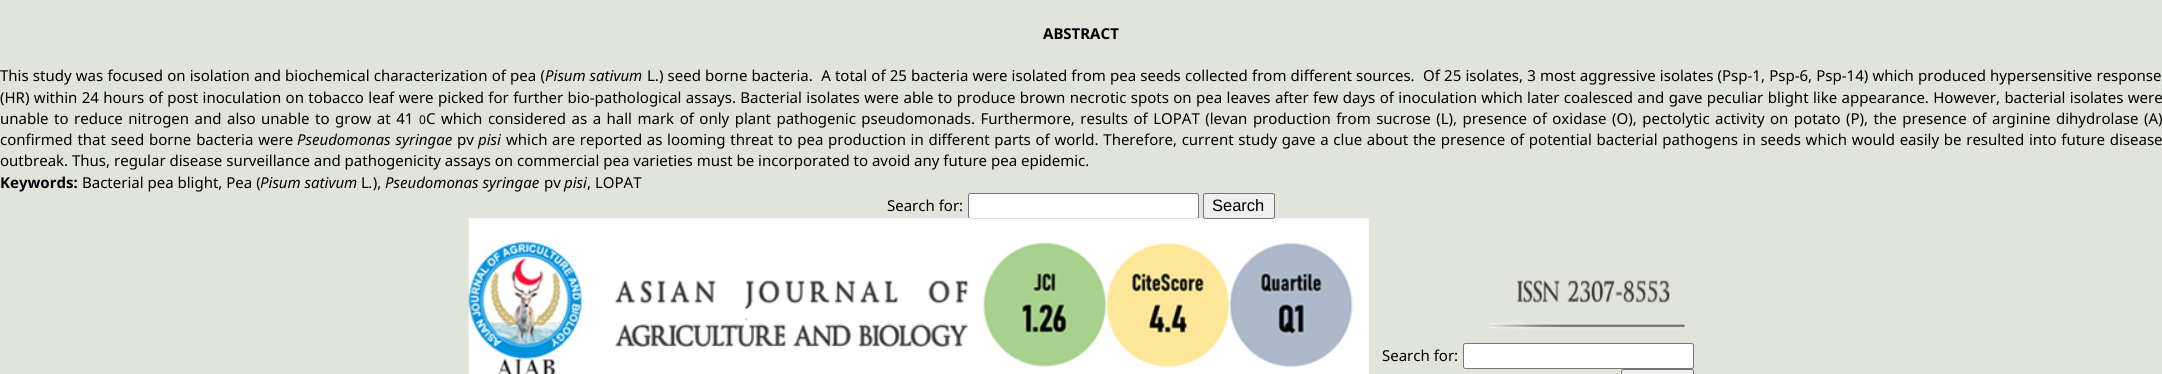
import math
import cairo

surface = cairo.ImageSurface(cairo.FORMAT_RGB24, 2162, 374)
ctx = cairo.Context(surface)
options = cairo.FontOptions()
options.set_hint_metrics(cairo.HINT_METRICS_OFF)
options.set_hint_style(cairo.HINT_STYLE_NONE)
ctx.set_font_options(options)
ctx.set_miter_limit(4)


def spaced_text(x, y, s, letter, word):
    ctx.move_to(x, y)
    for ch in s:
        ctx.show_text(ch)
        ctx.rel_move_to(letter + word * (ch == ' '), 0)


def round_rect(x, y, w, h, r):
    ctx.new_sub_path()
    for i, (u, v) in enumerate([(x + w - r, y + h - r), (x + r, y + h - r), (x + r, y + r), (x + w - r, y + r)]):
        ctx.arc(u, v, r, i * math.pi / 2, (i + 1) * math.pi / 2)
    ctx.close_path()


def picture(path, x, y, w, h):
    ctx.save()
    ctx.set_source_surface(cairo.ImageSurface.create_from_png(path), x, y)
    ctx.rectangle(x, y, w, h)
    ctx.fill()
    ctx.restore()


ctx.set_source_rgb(0.882, 0.894, 0.859)
ctx.paint()
ctx.select_font_face("Noto Sans", cairo.FONT_SLANT_NORMAL, cairo.FONT_WEIGHT_BOLD)
ctx.set_font_size(15)
ctx.set_source_rgb(0, 0, 0)
ctx.move_to(1043, 39)
ctx.show_text("ABSTRACT")
ctx.select_font_face("Noto Sans")
spaced_text(0, 81, "This study was focused on isolation and biochemical characterization of pea (", 0, 0.3)
ctx.select_font_face("Noto Sans", cairo.FONT_SLANT_ITALIC)
ctx.move_to(545, 81)
ctx.show_text("Pisum sativum")
ctx.select_font_face("Noto Sans")
spaced_text(647, 81, "L.) seed borne bacteria.  A total of 25 bacteria were isolated from pea seeds collected from different sources.  Of 25 isolates, 3 most aggressive isolates (Psp-1, Psp-6, Psp-14) which produced hypersensitive response", 0, 0.3)
spaced_text(0, 103, "(HR) within 24 hours of post inoculation on tobacco leaf were picked for further bio-pathological assays. Bacterial isolates were able to produce brown necrotic spots on pea leaves after few days of inoculation which later coalesced and gave peculiar blight like appearance. However, bacterial isolates were", 0, 0.5)
spaced_text(0, 124, "unable to reduce nitrogen and also unable to grow at 41", 0, 1.6)
ctx.set_font_size(12)
ctx.move_to(419, 124)
ctx.show_text("0")
ctx.set_font_size(15)
spaced_text(426, 124, "C which considered as a hall mark of only plant pathogenic pseudomonads. Furthermore, results of LOPAT (levan production from sucrose (L), presence of oxidase (O), pectolytic activity on potato (P), the presence of arginine dihydrolase (A)", 0, 1.6)
spaced_text(0, 145, "confirmed that seed borne bacteria were", 0, 1)
ctx.select_font_face("Noto Sans", cairo.FONT_SLANT_ITALIC)
spaced_text(297, 145, "Pseudomonas syringae", 0, 1)
ctx.select_font_face("Noto Sans")
ctx.move_to(457, 145)
ctx.show_text("pv")
ctx.select_font_face("Noto Sans", cairo.FONT_SLANT_ITALIC)
ctx.move_to(478, 145)
ctx.show_text("pisi")
ctx.select_font_face("Noto Sans")
spaced_text(506, 145, "which are reported as looming threat to pea production in different parts of world. Therefore, current study gave a clue about the presence of potential bacterial pathogens in seeds which would easily be resulted into future disease", 0, 0.8)
ctx.move_to(0, 166)
ctx.show_text("outbreak. Thus, regular disease surveillance and pathogenicity assays on commercial pea varieties must be incorporated to avoid any future pea epidemic.")
ctx.select_font_face("Noto Sans", cairo.FONT_SLANT_NORMAL, cairo.FONT_WEIGHT_BOLD)
ctx.move_to(0, 188)
ctx.show_text("Keywords:")
ctx.select_font_face("Noto Sans")
ctx.move_to(82, 188)
ctx.show_text("Bacterial pea blight, Pea (")
ctx.select_font_face("Noto Sans", cairo.FONT_SLANT_ITALIC)
ctx.move_to(260, 188)
ctx.show_text("Pisum sativum")
ctx.select_font_face("Noto Sans")
ctx.move_to(361, 188)
ctx.show_text("L ),")
ctx.select_font_face("Noto Sans", cairo.FONT_SLANT_ITALIC)
ctx.move_to(385, 188)
ctx.show_text("Pseudomonas syringae")
ctx.select_font_face("Noto Sans")
ctx.move_to(544, 188)
ctx.show_text("pv")
ctx.select_font_face("Noto Sans", cairo.FONT_SLANT_ITALIC)
ctx.move_to(564, 188)
ctx.show_text("pisi")
ctx.select_font_face("Noto Sans")
ctx.move_to(587, 188)
ctx.show_text(", LOPAT")
ctx.select_font_face("Noto Sans", cairo.FONT_SLANT_ITALIC)
ctx.move_to(369, 188)
ctx.show_text(".")
ctx.select_font_face("Noto Sans")
ctx.move_to(887, 211)
ctx.show_text("Search for:")
ctx.set_source_rgb(1, 1, 1)
round_rect(968.5, 193.5, 230, 25, 2)
ctx.fill_preserve()
ctx.set_source_rgb(0.463, 0.463, 0.463)
ctx.set_line_width(1)
ctx.stroke()
picture("img1.png", 468, 218, 901, 156)
ctx.set_source_rgb(0.937, 0.937, 0.937)
round_rect(1203.5, 193.5, 71, 25, 2)
ctx.fill_preserve()
ctx.set_source_rgb(0.463, 0.463, 0.463)
ctx.stroke()
ctx.select_font_face("Liberation Sans")
ctx.set_font_size(16.5)
ctx.set_source_rgb(0, 0, 0)
ctx.move_to(1212, 211)
ctx.show_text("Search")
picture("img2.png", 1489, 280, 197, 49)
ctx.select_font_face("Noto Sans")
ctx.set_font_size(15)
ctx.move_to(1382, 361)
ctx.show_text("Search for:")
ctx.set_source_rgb(1, 1, 1)
round_rect(1463.5, 343.5, 230, 25, 2)
ctx.fill_preserve()
ctx.set_source_rgb(0.463, 0.463, 0.463)
ctx.stroke()
ctx.set_source_rgb(0.937, 0.937, 0.937)
round_rect(1621.5, 369.5, 72, 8, 2)
ctx.fill_preserve()
ctx.set_source_rgb(0.463, 0.463, 0.463)
ctx.stroke()
surface.write_to_png("page.png")
